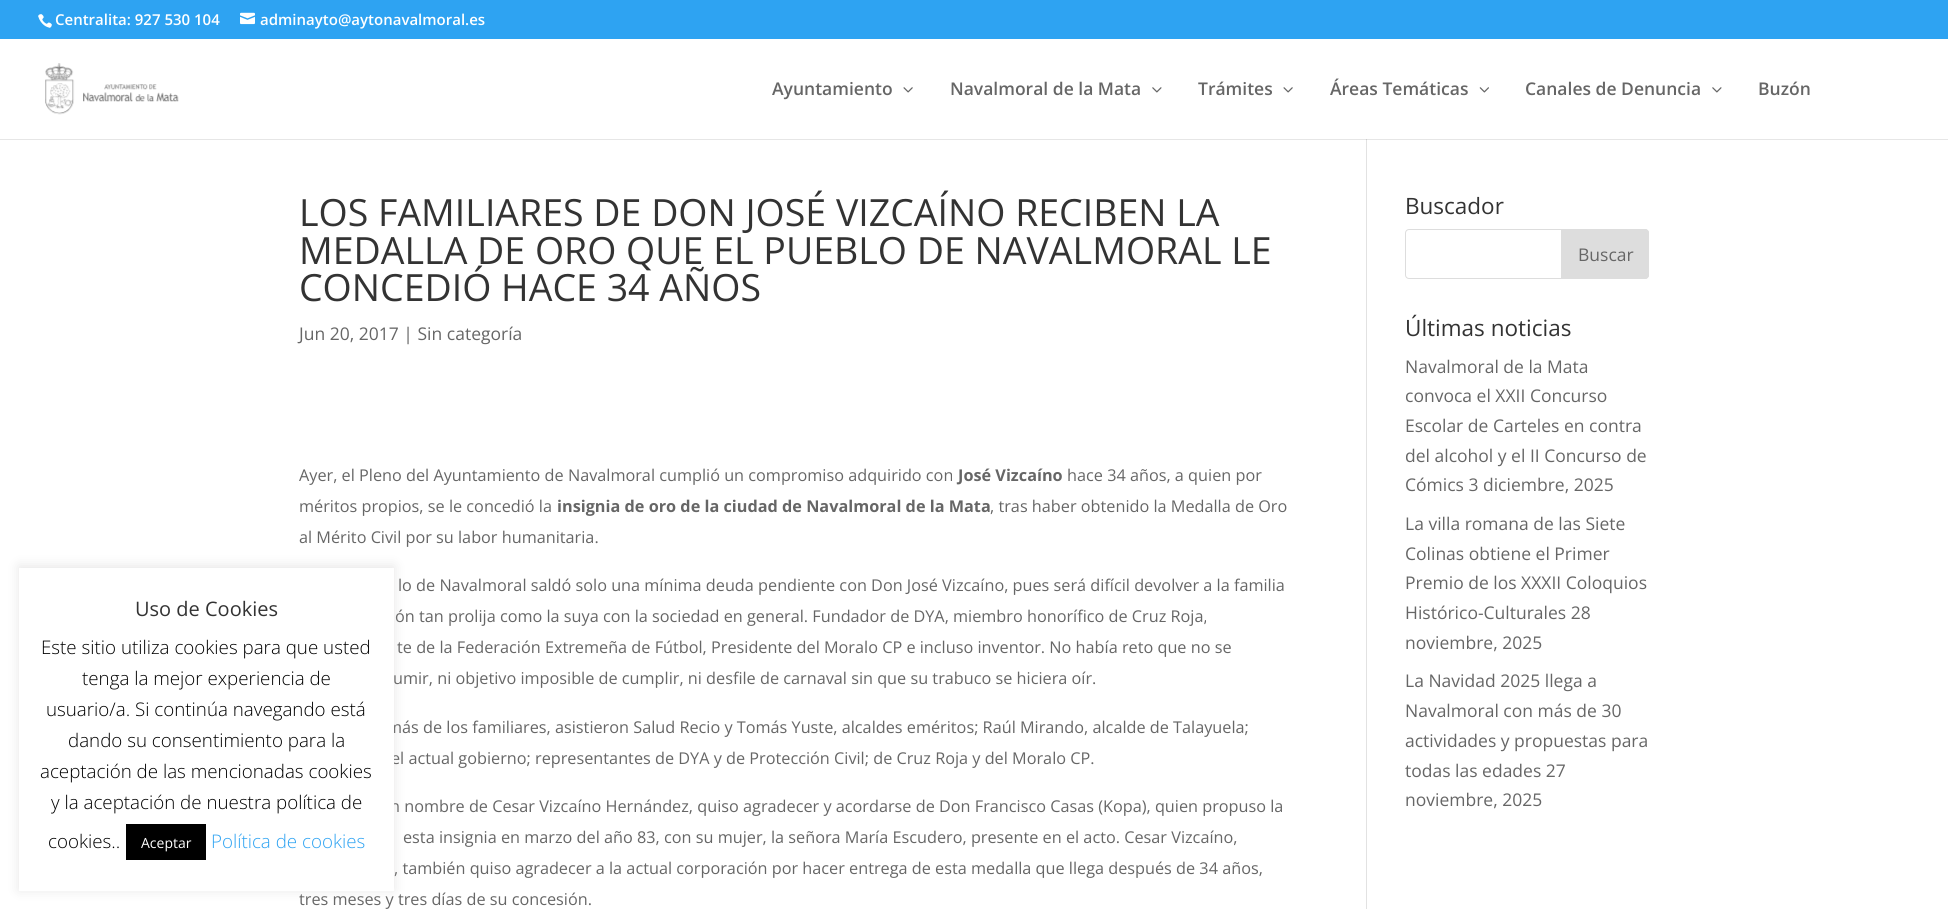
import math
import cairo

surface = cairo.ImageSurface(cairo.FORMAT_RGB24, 1948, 909)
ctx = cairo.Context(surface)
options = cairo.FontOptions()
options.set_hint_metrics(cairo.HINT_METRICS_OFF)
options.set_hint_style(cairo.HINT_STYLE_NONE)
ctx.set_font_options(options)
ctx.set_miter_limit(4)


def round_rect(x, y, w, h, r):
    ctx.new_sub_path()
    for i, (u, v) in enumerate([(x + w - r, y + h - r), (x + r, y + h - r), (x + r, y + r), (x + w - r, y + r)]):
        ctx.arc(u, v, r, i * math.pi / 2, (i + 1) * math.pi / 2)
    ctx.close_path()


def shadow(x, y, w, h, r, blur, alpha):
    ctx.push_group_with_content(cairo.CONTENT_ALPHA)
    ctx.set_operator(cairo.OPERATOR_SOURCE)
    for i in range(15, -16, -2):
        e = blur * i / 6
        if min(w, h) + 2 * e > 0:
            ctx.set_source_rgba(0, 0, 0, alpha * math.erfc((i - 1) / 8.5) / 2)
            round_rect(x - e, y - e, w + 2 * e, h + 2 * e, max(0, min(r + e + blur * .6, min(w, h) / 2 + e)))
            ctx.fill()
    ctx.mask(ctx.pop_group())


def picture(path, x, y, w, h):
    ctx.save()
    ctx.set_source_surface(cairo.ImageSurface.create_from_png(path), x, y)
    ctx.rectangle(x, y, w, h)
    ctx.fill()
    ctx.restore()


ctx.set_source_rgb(1, 1, 1)
ctx.paint()
ctx.set_source_rgb(0.18, 0.639, 0.949)
ctx.rectangle(0, 0, 1948, 39)
ctx.fill()
picture("img1.png", 38, 14, 14, 14)
ctx.select_font_face("Open Sans SemiBold")
ctx.set_font_size(15)
ctx.set_source_rgb(1, 1, 1)
ctx.move_to(55, 25)
ctx.show_text("Centralita: 927 530 104")
picture("img2.png", 240, 12, 15, 13)
ctx.move_to(260, 25)
ctx.show_text("adminayto@aytonavalmoral.es")
ctx.set_source_rgb(0.886, 0.886, 0.886)
ctx.rectangle(1366, 139, 1, 770)
ctx.fill()
ctx.set_source_rgba(0, 0, 0, 0.1)
ctx.new_path()
ctx.move_to(0, 139)
ctx.line_to(0, 140)
ctx.line_to(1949, 140)
ctx.line_to(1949, 40)
ctx.line_to(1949, 139)
ctx.close_path()
ctx.fill()
picture("img3.png", 45, 63, 134, 52)
ctx.set_font_size(17.5)
ctx.set_source_rgb(0.4, 0.4, 0.4)
ctx.move_to(772, 95)
ctx.show_text("Ayuntamiento")
picture("img4.png", 903, 87, 10, 6)
ctx.move_to(950, 95)
ctx.show_text("Navalmoral de la Mata")
picture("img5.png", 1152, 87, 10, 6)
ctx.move_to(1198, 95)
ctx.show_text("Trámites")
picture("img4.png", 1283, 87, 10, 6)
ctx.move_to(1330, 95)
ctx.show_text("Áreas Temáticas")
picture("img6.png", 1479, 87, 10, 6)
ctx.move_to(1525, 95)
ctx.show_text("Canales de Denuncia")
picture("img5.png", 1712, 87, 10, 6)
ctx.move_to(1758, 95)
ctx.show_text("Buzón")
ctx.select_font_face("Open Sans")
ctx.set_font_size(37.5)
ctx.set_source_rgb(0.2, 0.2, 0.2)
ctx.move_to(299, 226)
ctx.show_text("LOS FAMILIARES DE DON JOSÉ VIZCAÍNO RECIBEN LA")
ctx.move_to(299, 264)
ctx.show_text("MEDALLA DE ORO QUE EL PUEBLO DE NAVALMORAL LE")
ctx.move_to(299, 301)
ctx.show_text("CONCEDIÓ HACE 34 AÑOS")
ctx.set_font_size(17.5)
ctx.set_source_rgb(0.4, 0.4, 0.4)
ctx.move_to(299, 340)
ctx.show_text("Jun 20, 2017 | Sin categoría")
ctx.set_font_size(16.25)
ctx.move_to(299, 481)
ctx.show_text("Ayer, el Pleno del Ayuntamiento de Navalmoral cumplió un compromiso adquirido con")
ctx.select_font_face("Open Sans", cairo.FONT_SLANT_NORMAL, cairo.FONT_WEIGHT_BOLD)
ctx.move_to(958, 481)
ctx.show_text("José Vizcaíno")
ctx.select_font_face("Open Sans")
ctx.move_to(1067, 481)
ctx.show_text("hace 34 años, a quien por")
ctx.move_to(299, 512)
ctx.show_text("méritos propios, se le concedió la")
ctx.select_font_face("Open Sans", cairo.FONT_SLANT_NORMAL, cairo.FONT_WEIGHT_BOLD)
ctx.move_to(557, 512)
ctx.show_text("insignia de oro de la ciudad de Navalmoral de la Mata")
ctx.select_font_face("Open Sans")
ctx.move_to(990, 512)
ctx.show_text(", tras haber obtenido la Medalla de Oro")
ctx.move_to(299, 543)
ctx.show_text("al Mérito Civil por su labor humanitaria.")
ctx.move_to(398, 591)
ctx.show_text("lo de Navalmoral saldó solo una mínima deuda pendiente con Don José Vizcaíno, pues será difícil devolver a la familia")
ctx.move_to(395, 622)
ctx.show_text("ón tan prolija como la suya con la sociedad en general. Fundador de DYA, miembro honorífico de Cruz Roja,")
ctx.move_to(397, 653)
ctx.show_text("te de la Federación Extremeña de Fútbol, Presidente del Moralo CP e incluso inventor. No había reto que no se")
ctx.move_to(393, 684)
ctx.show_text("umir, ni objetivo imposible de cumplir, ni desfile de carnaval sin que su trabuco se hiciera oír.")
ctx.move_to(387, 733)
ctx.show_text("más de los familiares, asistieron Salud Recio y Tomás Yuste, alcaldes eméritos; Raúl Mirando, alcalde de Talayuela;")
ctx.move_to(391, 764)
ctx.show_text("el actual gobierno; representantes de DYA y de Protección Civil; de Cruz Roja y del Moralo CP.")
ctx.move_to(390, 812)
ctx.show_text("n nombre de Cesar Vizcaíno Hernández, quiso agradecer y acordarse de Don Francisco Casas (Kopa), quien propuso la")
ctx.move_to(403, 843)
ctx.show_text("esta insignia en marzo del año 83, con su mujer, la señora María Escudero, presente en el acto. Cesar Vizcaíno,")
ctx.move_to(394, 874)
ctx.show_text(", también quiso agradecer a la actual corporación por hacer entrega de esta medalla que llega después de 34 años,")
ctx.move_to(299, 905)
ctx.show_text("tres meses y tres días de su concesión.")
ctx.set_font_size(22.5)
ctx.set_source_rgb(0.2, 0.2, 0.2)
ctx.move_to(1405, 214)
ctx.show_text("Buscador")
round_rect(1405.5, 229.5, 243, 49, 3.5)
ctx.set_source_rgb(0.867, 0.867, 0.867)
ctx.set_line_width(1)
ctx.stroke()
ctx.new_path()
ctx.move_to(1561.5, 229.5)
ctx.line_to(1645, 229.5)
ctx.curve_to(1647, 229.5, 1648.5, 231, 1648.5, 233)
ctx.line_to(1648.5, 275)
ctx.curve_to(1648.5, 277, 1647, 278.5, 1645, 278.5)
ctx.line_to(1561.5, 278.5)
ctx.close_path()
ctx.fill_preserve()
ctx.stroke()
ctx.set_font_size(17.5)
ctx.set_source_rgb(0.4, 0.4, 0.4)
ctx.move_to(1578, 261)
ctx.show_text("Buscar")
ctx.set_font_size(22.5)
ctx.set_source_rgb(0.2, 0.2, 0.2)
ctx.move_to(1405, 336)
ctx.show_text("Últimas noticias")
ctx.set_font_size(17.5)
ctx.set_source_rgb(0.4, 0.4, 0.4)
ctx.move_to(1405, 373)
ctx.show_text("Navalmoral de la Mata")
ctx.move_to(1405, 402)
ctx.show_text("convoca el XXII Concurso")
ctx.move_to(1405, 432)
ctx.show_text("Escolar de Carteles en contra")
ctx.move_to(1405, 462)
ctx.show_text("del alcohol y el II Concurso de")
ctx.move_to(1405, 491)
ctx.show_text("Cómics 3 diciembre, 2025")
ctx.move_to(1405, 530)
ctx.show_text("La villa romana de las Siete")
ctx.move_to(1405, 560)
ctx.show_text("Colinas obtiene el Primer")
ctx.move_to(1405, 589)
ctx.show_text("Premio de los XXXII Coloquios")
ctx.move_to(1405, 619)
ctx.show_text("Histórico-Culturales 28")
ctx.move_to(1405, 649)
ctx.show_text("noviembre, 2025")
ctx.move_to(1405, 687)
ctx.show_text("La Navidad 2025 llega a")
ctx.move_to(1405, 717)
ctx.show_text("Navalmoral con más de 30")
ctx.move_to(1405, 747)
ctx.show_text("actividades y propuestas para")
ctx.move_to(1405, 777)
ctx.show_text("todas las edades 27")
ctx.move_to(1405, 806)
ctx.show_text("noviembre, 2025")
ctx.set_source_rgb(0.675, 0.671, 0.671)
shadow(19, 566, 375, 324, 0, 6, 0.3)
ctx.set_source_rgb(1, 1, 1)
ctx.rectangle(19, 568, 375, 323)
ctx.fill()
ctx.set_font_size(20)
ctx.set_source_rgb(0.2, 0.2, 0.2)
ctx.move_to(135, 616)
ctx.show_text("Uso de Cookies")
ctx.select_font_face("Open Sans Light")
ctx.set_font_size(18.75)
ctx.set_source_rgb(0, 0, 0)
ctx.move_to(41, 654)
ctx.show_text("Este sitio utiliza cookies para que usted")
ctx.move_to(82, 685)
ctx.show_text("tenga la mejor experiencia de")
ctx.move_to(46, 716)
ctx.show_text("usuario/a. Si continúa navegando está")
ctx.move_to(68, 747)
ctx.show_text("dando su consentimiento para la")
ctx.move_to(40, 778)
ctx.show_text("aceptación de las mencionadas cookies")
ctx.move_to(51, 809)
ctx.show_text("y la aceptación de nuestra política de")
ctx.move_to(48, 848)
ctx.show_text("cookies..")
ctx.rectangle(126, 824, 80, 36)
ctx.fill()
ctx.select_font_face("Open Sans")
ctx.set_font_size(14)
ctx.set_source_rgb(1, 1, 1)
ctx.move_to(141, 848)
ctx.show_text("Aceptar")
ctx.select_font_face("Open Sans Light")
ctx.set_font_size(18.75)
ctx.set_source_rgb(0.18, 0.639, 0.949)
ctx.move_to(211, 848)
ctx.show_text("Política de cookies")
surface.write_to_png("page.png")
